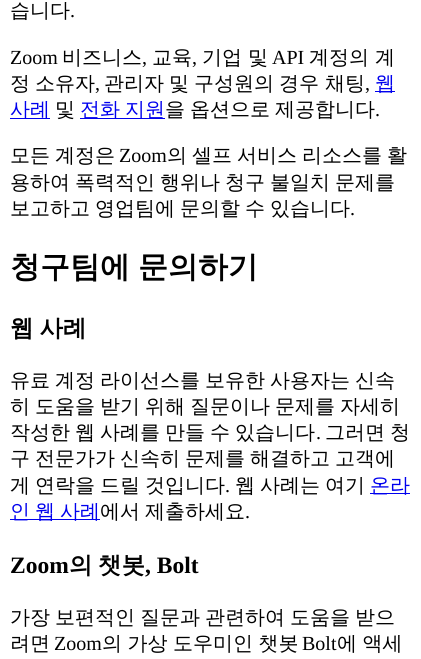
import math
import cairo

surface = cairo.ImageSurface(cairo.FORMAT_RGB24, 421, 659)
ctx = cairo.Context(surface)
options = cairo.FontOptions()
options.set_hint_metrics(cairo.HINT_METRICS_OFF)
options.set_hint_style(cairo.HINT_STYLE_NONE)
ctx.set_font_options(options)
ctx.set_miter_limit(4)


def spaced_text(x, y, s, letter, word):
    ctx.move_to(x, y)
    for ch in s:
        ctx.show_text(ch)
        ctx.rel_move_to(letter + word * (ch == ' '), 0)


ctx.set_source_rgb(1, 1, 1)
ctx.paint()
ctx.select_font_face("WenQuanYi Zen Hei Medium")
ctx.set_font_size(20)
ctx.set_source_rgb(0, 0, 0)
ctx.move_to(10, 17)
ctx.show_text("습니다")
ctx.select_font_face("Liberation Serif")
ctx.move_to(70, 17)
ctx.show_text(".")
ctx.move_to(10, 64)
ctx.show_text("Zoom")
ctx.select_font_face("WenQuanYi Zen Hei Medium")
ctx.move_to(62, 64)
ctx.show_text("비즈니스")
ctx.select_font_face("Liberation Serif")
ctx.move_to(142, 64)
ctx.show_text(",")
ctx.select_font_face("WenQuanYi Zen Hei Medium")
ctx.move_to(152, 64)
ctx.show_text("교육")
ctx.select_font_face("Liberation Serif")
ctx.move_to(192, 64)
ctx.show_text(",")
ctx.select_font_face("WenQuanYi Zen Hei Medium")
ctx.move_to(202, 64)
ctx.show_text("기업 및")
ctx.select_font_face("Liberation Serif")
ctx.move_to(272, 64)
ctx.show_text("API")
ctx.select_font_face("WenQuanYi Zen Hei Medium")
ctx.move_to(309, 64)
ctx.show_text("계정의 계")
spaced_text(10, 90, "정 소유자", 0, -1)
ctx.select_font_face("Liberation Serif")
ctx.move_to(95, 90)
ctx.show_text(",")
ctx.select_font_face("WenQuanYi Zen Hei Medium")
spaced_text(104, 90, "관리자 및 구성원의 경우", 0, -1)
ctx.move_to(325, 90)
ctx.show_text("채팅")
ctx.select_font_face("Liberation Serif")
ctx.move_to(365, 90)
ctx.show_text(",")
ctx.set_source_rgb(0, 0, 0.933)
ctx.rectangle(375, 91, 20, 1)
ctx.fill()
ctx.select_font_face("WenQuanYi Zen Hei Medium")
ctx.move_to(375, 90)
ctx.show_text("웹")
ctx.rectangle(10, 118, 40, 1)
ctx.fill()
ctx.move_to(10, 116)
ctx.show_text("사례")
ctx.set_source_rgb(0, 0, 0)
ctx.move_to(55, 116)
ctx.show_text("및")
ctx.set_source_rgb(0, 0, 0.933)
ctx.rectangle(80, 118, 85, 1)
ctx.fill()
spaced_text(80, 116, "전화 지원", 0, -1)
ctx.set_source_rgb(0, 0, 0)
spaced_text(165, 116, "을 옵션으로 제공합니다", 0, -1)
ctx.select_font_face("Liberation Serif")
ctx.move_to(375, 116)
ctx.show_text(".")
ctx.select_font_face("WenQuanYi Zen Hei Medium")
spaced_text(10, 162, "모든 계정은", 0, -1)
ctx.select_font_face("Liberation Serif")
ctx.move_to(119, 162)
ctx.show_text("Zoom")
ctx.select_font_face("WenQuanYi Zen Hei Medium")
spaced_text(167, 162, "의 셀프 서비스 리소스를 활", 0, -1)
spaced_text(10, 189, "용하여 폭력적인 행위나 청구 불일치 문제를", 0, -1)
spaced_text(10, 215, "보고하고 영업팀에 문의할 수 있습니다", 0, -1)
ctx.select_font_face("Liberation Serif")
ctx.move_to(350, 215)
ctx.show_text(".")
ctx.select_font_face("WenQuanYi Zen Hei", cairo.FONT_SLANT_NORMAL, cairo.FONT_WEIGHT_BOLD)
ctx.set_font_size(30)
spaced_text(10, 277, "청구팀에 문의하기", 0, -1)
ctx.set_font_size(23.5)
spaced_text(10, 336, "웹 사례", 0, -1)
ctx.select_font_face("WenQuanYi Zen Hei Medium")
ctx.set_font_size(20)
spaced_text(10, 387, "유료 계정 라이선스를 보유한 사용자는 신속", 0, -1)
spaced_text(10, 413, "히 도움을 받기 위해 질문이나 문제를 자세히", 0, -1)
spaced_text(10, 439, "작성한 웹 사례를 만들 수 있습니다", 0, -1)
ctx.select_font_face("Liberation Serif")
ctx.move_to(316, 439)
ctx.show_text(".")
ctx.select_font_face("WenQuanYi Zen Hei Medium")
spaced_text(325, 439, "그러면 청", 0, -1)
spaced_text(10, 465, "구 전문가가 신속히 문제를 해결하고 고객에", 0, -1)
spaced_text(10, 492, "게 연락을 드릴 것입니다", 0, -1)
ctx.select_font_face("Liberation Serif")
ctx.move_to(225, 492)
ctx.show_text(".")
ctx.select_font_face("WenQuanYi Zen Hei Medium")
spaced_text(235, 492, "웹 사례는 여기", 0, -1)
ctx.set_source_rgb(0, 0, 0.933)
ctx.rectangle(370, 493, 40, 1)
ctx.fill()
ctx.move_to(370, 492)
ctx.show_text("온라")
ctx.rectangle(10, 519, 90, 1)
ctx.fill()
spaced_text(10, 518, "인 웹 사례", 0, -1)
ctx.set_source_rgb(0, 0, 0)
spaced_text(100, 518, "에서 제출하세요", 0, -1)
ctx.select_font_face("Liberation Serif")
ctx.move_to(245, 518)
ctx.show_text(".")
ctx.select_font_face("Liberation Serif", cairo.FONT_SLANT_NORMAL, cairo.FONT_WEIGHT_BOLD)
ctx.set_font_size(23.5)
ctx.move_to(10, 573)
ctx.show_text("Zoom")
ctx.select_font_face("WenQuanYi Zen Hei", cairo.FONT_SLANT_NORMAL, cairo.FONT_WEIGHT_BOLD)
ctx.move_to(69, 573)
ctx.show_text("의")
ctx.move_to(98, 573)
ctx.show_text("챗봇")
ctx.select_font_face("Liberation Serif", cairo.FONT_SLANT_NORMAL, cairo.FONT_WEIGHT_BOLD)
ctx.move_to(145, 573)
ctx.show_text(", Bolt")
ctx.select_font_face("WenQuanYi Zen Hei Medium")
ctx.set_font_size(20)
spaced_text(10, 624, "가장 보편적인 질문과 관련하여 도움을 받으", 0, -1)
ctx.move_to(10, 650)
ctx.show_text("려면")
ctx.select_font_face("Liberation Serif")
ctx.move_to(54, 650)
ctx.show_text("Zoom")
ctx.select_font_face("WenQuanYi Zen Hei Medium")
spaced_text(102, 650, "의 가상 도우미인 챗봇", 0, -0.5)
ctx.select_font_face("Liberation Serif")
ctx.move_to(302, 650)
ctx.show_text("Bolt")
ctx.select_font_face("WenQuanYi Zen Hei Medium")
spaced_text(337, 650, "에 액세", 0, -0.5)
surface.write_to_png("page.png")
